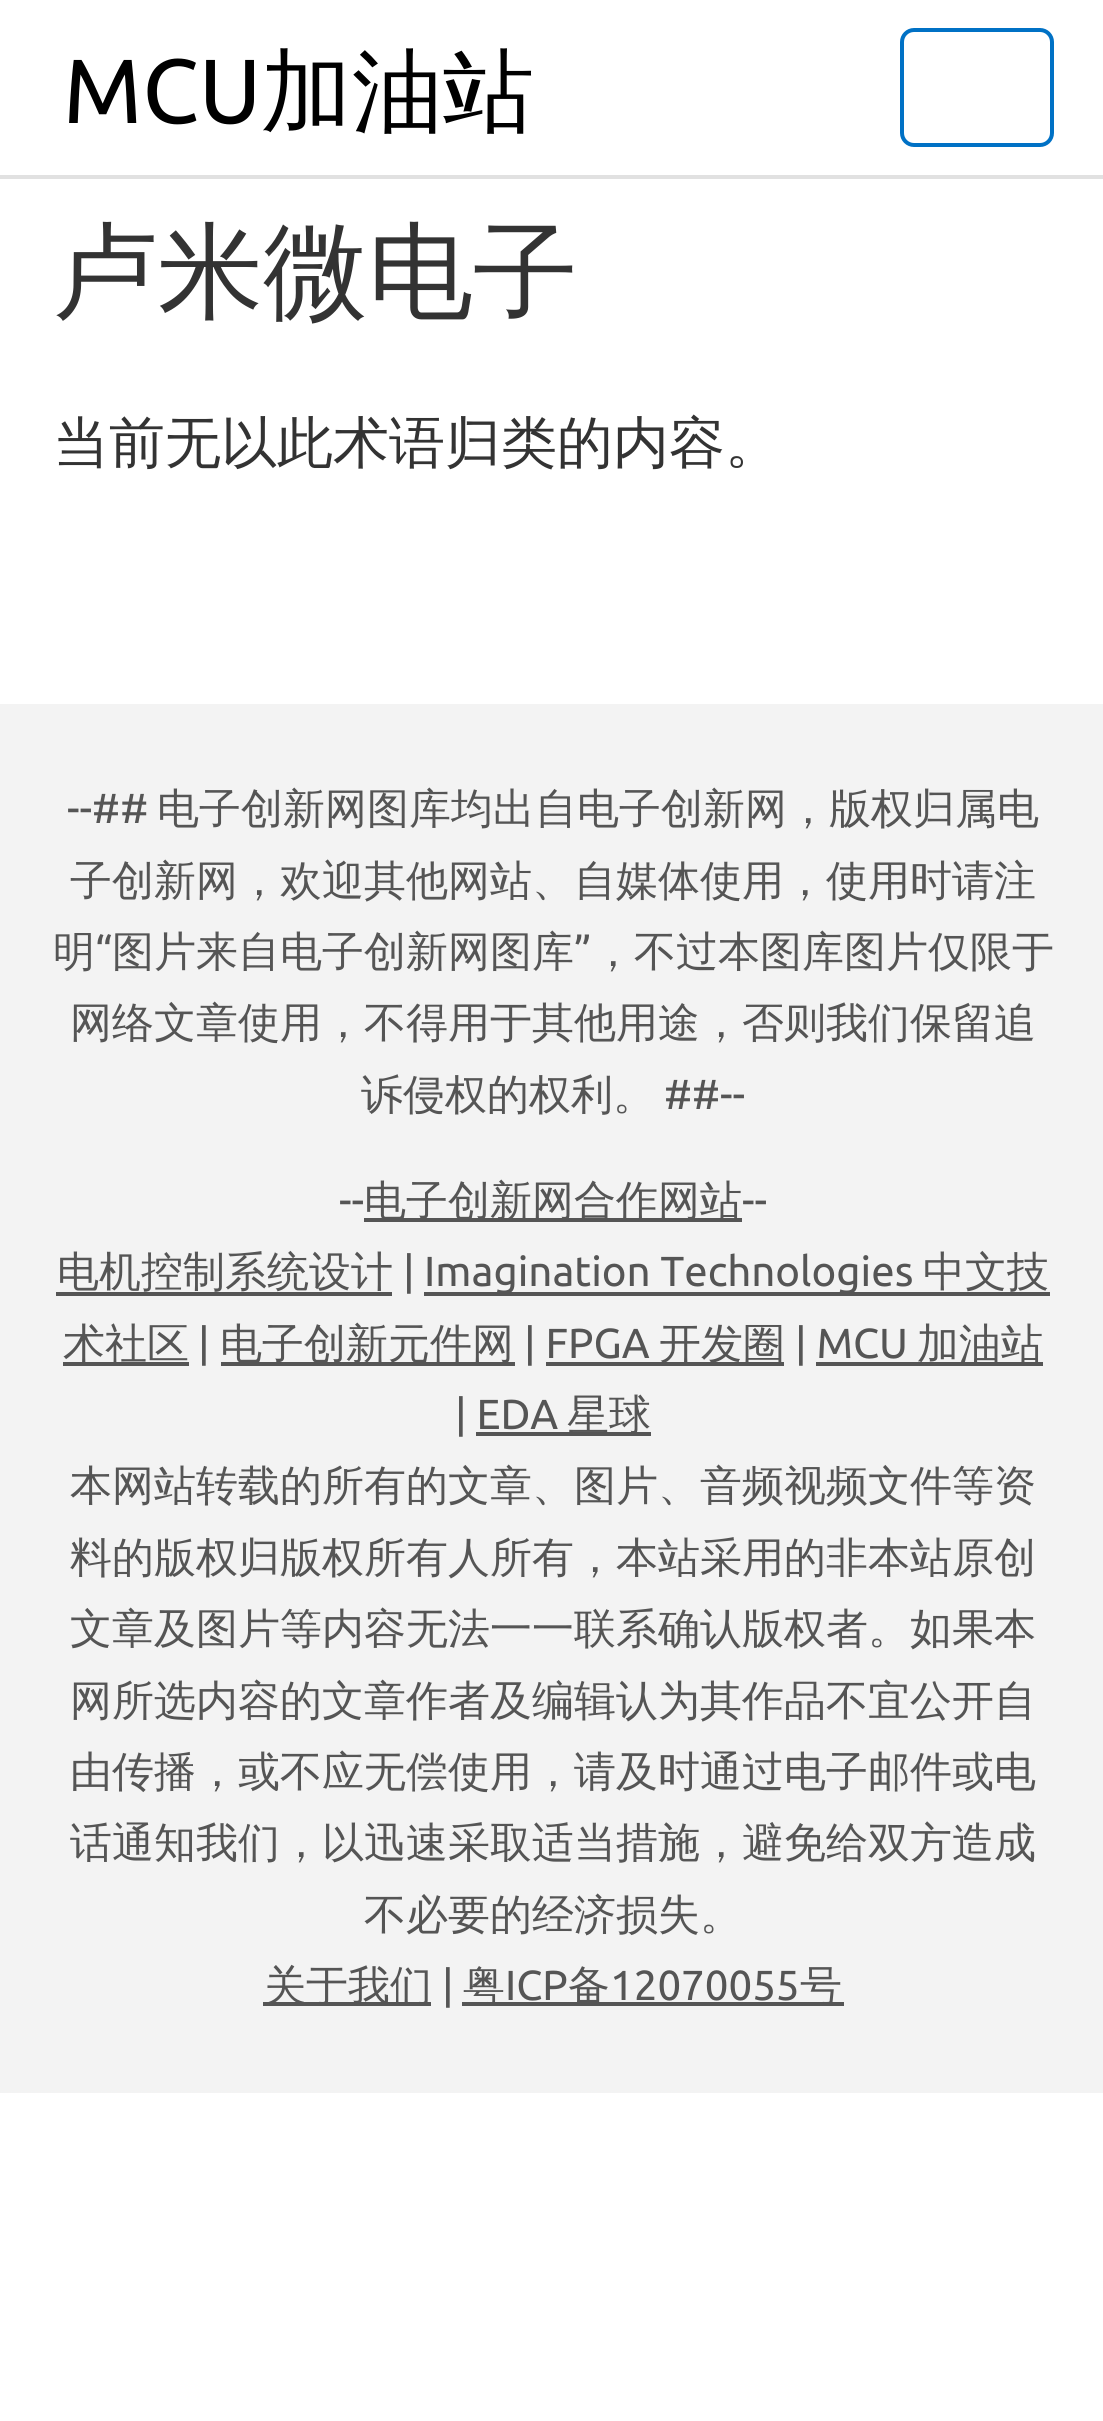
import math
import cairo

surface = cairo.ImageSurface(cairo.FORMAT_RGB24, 1103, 2421)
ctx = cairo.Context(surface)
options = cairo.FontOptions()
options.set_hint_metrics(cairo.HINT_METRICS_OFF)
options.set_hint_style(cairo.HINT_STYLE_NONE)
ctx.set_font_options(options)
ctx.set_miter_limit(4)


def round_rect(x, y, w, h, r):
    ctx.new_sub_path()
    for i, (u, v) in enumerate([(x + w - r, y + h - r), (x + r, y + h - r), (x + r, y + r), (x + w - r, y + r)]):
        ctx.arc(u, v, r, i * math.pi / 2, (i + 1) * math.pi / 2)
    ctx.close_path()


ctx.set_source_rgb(1, 1, 1)
ctx.paint()
ctx.set_source_rgb(0.882, 0.882, 0.882)
ctx.rectangle(0, 175, 1103, 4)
ctx.fill()
ctx.select_font_face("Ubuntu")
ctx.set_font_size(91)
ctx.set_source_rgb(0, 0, 0)
ctx.move_to(63, 123)
ctx.show_text("MCU")
ctx.select_font_face("WenQuanYi Zen Hei Medium")
ctx.move_to(261, 123)
ctx.show_text("加油站")
round_rect(902, 30, 150, 115, 12)
ctx.set_source_rgb(0, 0.443, 0.773)
ctx.set_line_width(4)
ctx.stroke()
ctx.set_font_size(105)
ctx.set_source_rgb(0.2, 0.2, 0.2)
ctx.move_to(53, 308)
ctx.show_text("卢米微电子")
ctx.set_font_size(56)
ctx.move_to(53, 462)
ctx.show_text("当前无以此术语归类的内容。")
ctx.set_source_rgb(0.953, 0.953, 0.953)
ctx.rectangle(0, 704, 1103, 1389)
ctx.fill()
ctx.select_font_face("Ubuntu")
ctx.set_font_size(42)
ctx.set_source_rgb(0.333, 0.333, 0.333)
ctx.move_to(67, 823)
ctx.show_text("--##")
ctx.select_font_face("WenQuanYi Zen Hei Medium")
ctx.move_to(157, 823)
ctx.show_text("电子创新网图库均出自电子创新网，版权归属电")
ctx.move_to(70, 895)
ctx.show_text("子创新网，欢迎其他网站、自媒体使用，使用时请注")
ctx.move_to(53, 966)
ctx.show_text("明")
ctx.select_font_face("Ubuntu")
ctx.move_to(95, 966)
ctx.show_text("“")
ctx.select_font_face("WenQuanYi Zen Hei Medium")
ctx.move_to(112, 966)
ctx.show_text("图片来自电子创新网图库")
ctx.select_font_face("Ubuntu")
ctx.move_to(574, 966)
ctx.show_text("”")
ctx.select_font_face("WenQuanYi Zen Hei Medium")
ctx.move_to(592, 966)
ctx.show_text("，不过本图库图片仅限于")
ctx.move_to(70, 1037)
ctx.show_text("网络文章使用，不得用于其他用途，否则我们保留追")
ctx.move_to(361, 1109)
ctx.show_text("诉侵权的权利。")
ctx.select_font_face("Ubuntu")
ctx.move_to(664, 1109)
ctx.show_text("##--")
ctx.move_to(339, 1215)
ctx.show_text("--")
ctx.rectangle(364, 1218, 378, 4)
ctx.fill()
ctx.select_font_face("WenQuanYi Zen Hei Medium")
ctx.move_to(364, 1215)
ctx.show_text("电子创新网合作网站")
ctx.select_font_face("Ubuntu")
ctx.move_to(742, 1215)
ctx.show_text("--")
ctx.select_font_face("WenQuanYi Zen Hei Medium")
ctx.move_to(57, 1286)
ctx.show_text("电机控制系统设计")
ctx.rectangle(56, 1292, 336, 4)
ctx.fill()
ctx.select_font_face("Ubuntu")
ctx.move_to(403, 1286)
ctx.show_text("|")
ctx.rectangle(424, 1292, 626, 4)
ctx.fill()
ctx.move_to(424, 1286)
ctx.show_text("Imagination Technologies")
ctx.select_font_face("WenQuanYi Zen Hei Medium")
ctx.move_to(923, 1286)
ctx.show_text("中文技")
ctx.rectangle(63, 1362, 126, 4)
ctx.fill()
ctx.move_to(63, 1358)
ctx.show_text("术社区")
ctx.select_font_face("Ubuntu")
ctx.move_to(198, 1358)
ctx.show_text("|")
ctx.rectangle(221, 1362, 294, 4)
ctx.fill()
ctx.select_font_face("WenQuanYi Zen Hei Medium")
ctx.move_to(220, 1358)
ctx.show_text("电子创新元件网")
ctx.select_font_face("Ubuntu")
ctx.move_to(524, 1358)
ctx.show_text("| FPGA")
ctx.rectangle(546, 1362, 238, 4)
ctx.fill()
ctx.select_font_face("WenQuanYi Zen Hei Medium")
ctx.move_to(659, 1358)
ctx.show_text("开发圈")
ctx.select_font_face("Ubuntu")
ctx.move_to(795, 1358)
ctx.show_text("| MCU")
ctx.rectangle(816, 1362, 227, 4)
ctx.fill()
ctx.select_font_face("WenQuanYi Zen Hei Medium")
ctx.move_to(917, 1358)
ctx.show_text("加油站")
ctx.select_font_face("Ubuntu")
ctx.move_to(455, 1429)
ctx.show_text("| EDA")
ctx.rectangle(476, 1432, 175, 4)
ctx.fill()
ctx.select_font_face("WenQuanYi Zen Hei Medium")
ctx.move_to(567, 1429)
ctx.show_text("星球")
ctx.move_to(70, 1500)
ctx.show_text("本网站转载的所有的文章、图片、音频视频文件等资")
ctx.move_to(70, 1572)
ctx.show_text("料的版权归版权所有人所有，本站采用的非本站原创")
ctx.move_to(70, 1643)
ctx.show_text("文章及图片等内容无法一一联系确认版权者。如果本")
ctx.move_to(70, 1715)
ctx.show_text("网所选内容的文章作者及编辑认为其作品不宜公开自")
ctx.move_to(70, 1786)
ctx.show_text("由传播，或不应无偿使用，请及时通过电子邮件或电")
ctx.move_to(70, 1857)
ctx.show_text("话通知我们，以迅速采取适当措施，避免给双方造成")
ctx.move_to(364, 1929)
ctx.show_text("不必要的经济损失。")
ctx.rectangle(263, 2002, 168, 4)
ctx.fill()
ctx.move_to(264, 2000)
ctx.show_text("关于我们")
ctx.select_font_face("Ubuntu")
ctx.move_to(442, 2000)
ctx.show_text("|")
ctx.rectangle(462, 2002, 382, 4)
ctx.fill()
ctx.select_font_face("WenQuanYi Zen Hei Medium")
ctx.move_to(463, 2000)
ctx.show_text("粤")
ctx.select_font_face("Ubuntu")
ctx.move_to(505, 2000)
ctx.show_text("ICP")
ctx.select_font_face("WenQuanYi Zen Hei Medium")
ctx.move_to(568, 2000)
ctx.show_text("备")
ctx.select_font_face("Ubuntu")
ctx.move_to(610, 2000)
ctx.show_text("12070055")
ctx.select_font_face("WenQuanYi Zen Hei Medium")
ctx.move_to(800, 2000)
ctx.show_text("号")
surface.write_to_png("page.png")
